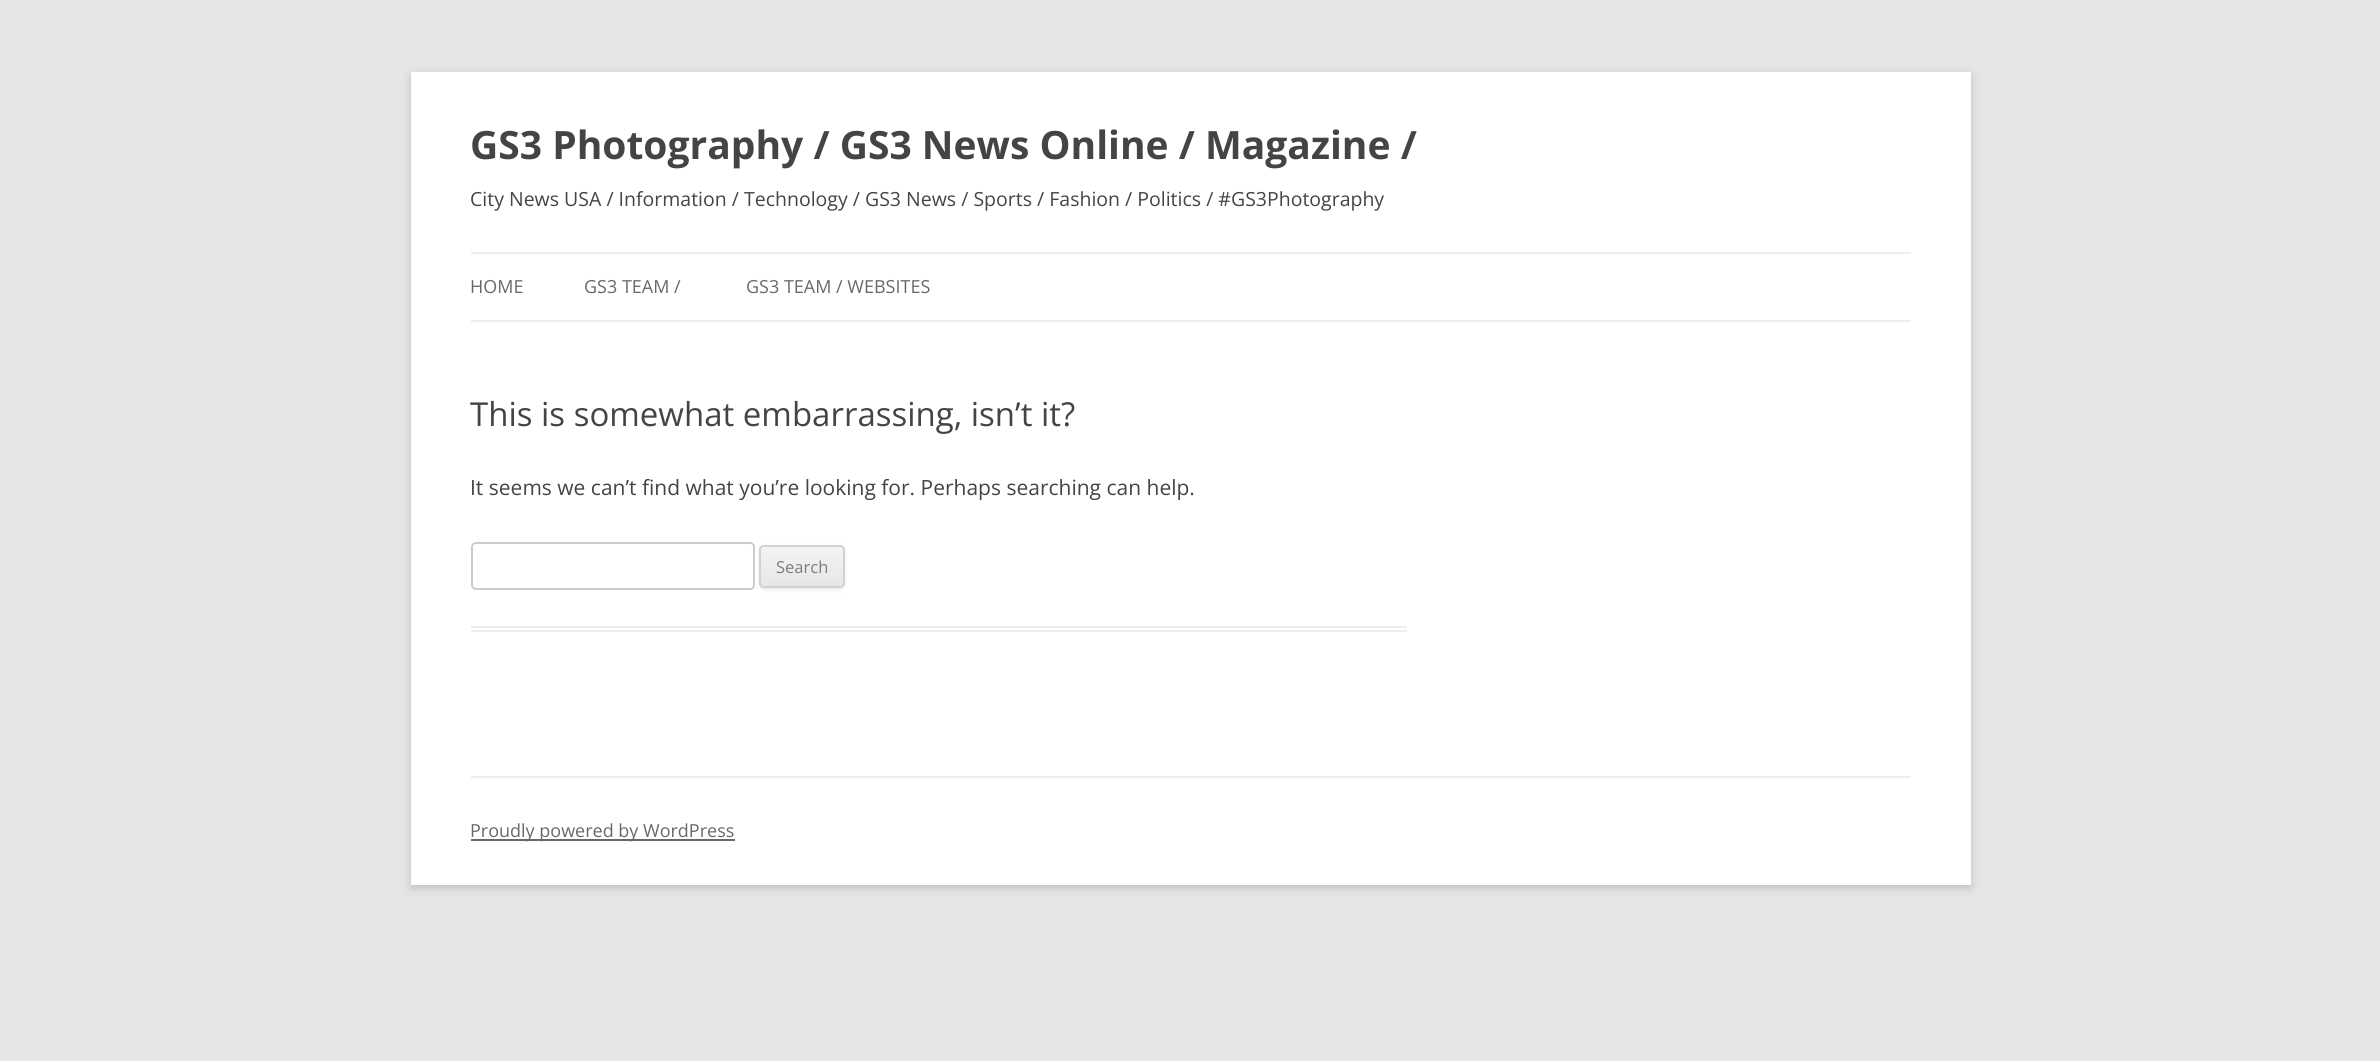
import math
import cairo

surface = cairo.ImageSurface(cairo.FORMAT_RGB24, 2380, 1061)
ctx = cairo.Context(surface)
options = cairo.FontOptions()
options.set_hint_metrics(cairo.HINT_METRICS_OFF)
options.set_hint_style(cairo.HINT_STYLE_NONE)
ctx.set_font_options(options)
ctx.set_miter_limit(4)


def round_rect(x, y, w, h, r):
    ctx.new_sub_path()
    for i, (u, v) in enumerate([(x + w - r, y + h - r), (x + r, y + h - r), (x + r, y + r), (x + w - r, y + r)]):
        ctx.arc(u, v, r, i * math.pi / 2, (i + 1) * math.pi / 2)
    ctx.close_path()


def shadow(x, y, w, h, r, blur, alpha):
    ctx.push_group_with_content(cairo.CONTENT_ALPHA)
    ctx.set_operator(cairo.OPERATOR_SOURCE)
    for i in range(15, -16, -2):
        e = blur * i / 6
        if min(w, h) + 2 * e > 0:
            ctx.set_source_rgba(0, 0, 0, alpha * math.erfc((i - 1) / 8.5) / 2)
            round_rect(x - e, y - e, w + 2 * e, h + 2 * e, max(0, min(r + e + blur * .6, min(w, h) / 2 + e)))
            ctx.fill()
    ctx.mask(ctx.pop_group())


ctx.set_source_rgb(0.902, 0.902, 0.902)
ctx.paint()
ctx.set_source_rgb(0.392, 0.392, 0.392)
shadow(411, 75, 1560, 813, 0, 4.5, 0.3)
ctx.set_source_rgb(1, 1, 1)
ctx.rectangle(411, 72, 1560, 813)
ctx.fill()
ctx.select_font_face("Open Sans", cairo.FONT_SLANT_NORMAL, cairo.FONT_WEIGHT_BOLD)
ctx.set_font_size(39)
ctx.set_source_rgb(0.267, 0.267, 0.267)
ctx.move_to(470, 159)
ctx.show_text("GS3 Photography / GS3 News Online / Magazine /")
ctx.select_font_face("Open Sans")
ctx.set_font_size(19.5)
ctx.move_to(470, 206)
ctx.show_text("City News USA / Information / Technology / GS3 News / Sports / Fashion / Politics / #GS3Photography")
ctx.set_source_rgb(0.929, 0.929, 0.929)
ctx.rectangle(471, 252, 1440, 2)
ctx.fill()
ctx.rectangle(471, 320, 1440, 2)
ctx.fill()
ctx.set_font_size(18)
ctx.set_source_rgb(0.408, 0.408, 0.408)
ctx.move_to(470, 293)
ctx.show_text("HOME")
ctx.move_to(584, 293)
ctx.show_text("GS3 TEAM /")
ctx.move_to(746, 293)
ctx.show_text("GS3 TEAM / WEBSITES")
ctx.set_source_rgb(0.929, 0.929, 0.929)
ctx.rectangle(471, 626, 936, 2)
ctx.fill()
ctx.rectangle(471, 630, 936, 2)
ctx.fill()
ctx.set_font_size(33)
ctx.set_source_rgb(0.267, 0.267, 0.267)
ctx.move_to(470, 426)
ctx.show_text("This is somewhat embarrassing, isn’t it?")
ctx.set_font_size(21)
ctx.move_to(470, 495)
ctx.show_text("It seems we can’t find what you’re looking for. Perhaps searching can help.")
round_rect(472, 543, 282, 46, 4)
ctx.set_source_rgb(0.8, 0.8, 0.8)
ctx.stroke()
ctx.set_source_rgb(0.251, 0.251, 0.251)
shadow(759, 546, 86, 44, 5, 1.5, 0.1)
ctx.save()
round_rect(759, 545, 86, 43, 5)
ctx.clip()
gradient = cairo.LinearGradient(802, 546, 802, 587)
gradient.add_color_stop_rgba(0, 0.957, 0.957, 0.957, 1)
gradient.add_color_stop_rgba(1, 0.902, 0.902, 0.902, 1)
ctx.set_source(gradient)
ctx.rectangle(759, 546, 86, 41)
ctx.fill()
ctx.restore()
round_rect(760, 546, 84, 41, 4)
ctx.set_source_rgb(0.824, 0.824, 0.824)
ctx.stroke()
ctx.set_font_size(16.5)
ctx.set_source_rgb(0.486, 0.486, 0.486)
ctx.move_to(776, 573)
ctx.show_text("Search")
ctx.set_source_rgb(0.929, 0.929, 0.929)
ctx.rectangle(471, 776, 1440, 2)
ctx.fill()
ctx.set_source_rgb(0.408, 0.408, 0.408)
ctx.rectangle(471, 839, 264, 2)
ctx.fill()
ctx.set_font_size(18)
ctx.move_to(470, 837)
ctx.show_text("Proudly powered by WordPress")
surface.write_to_png("page.png")
